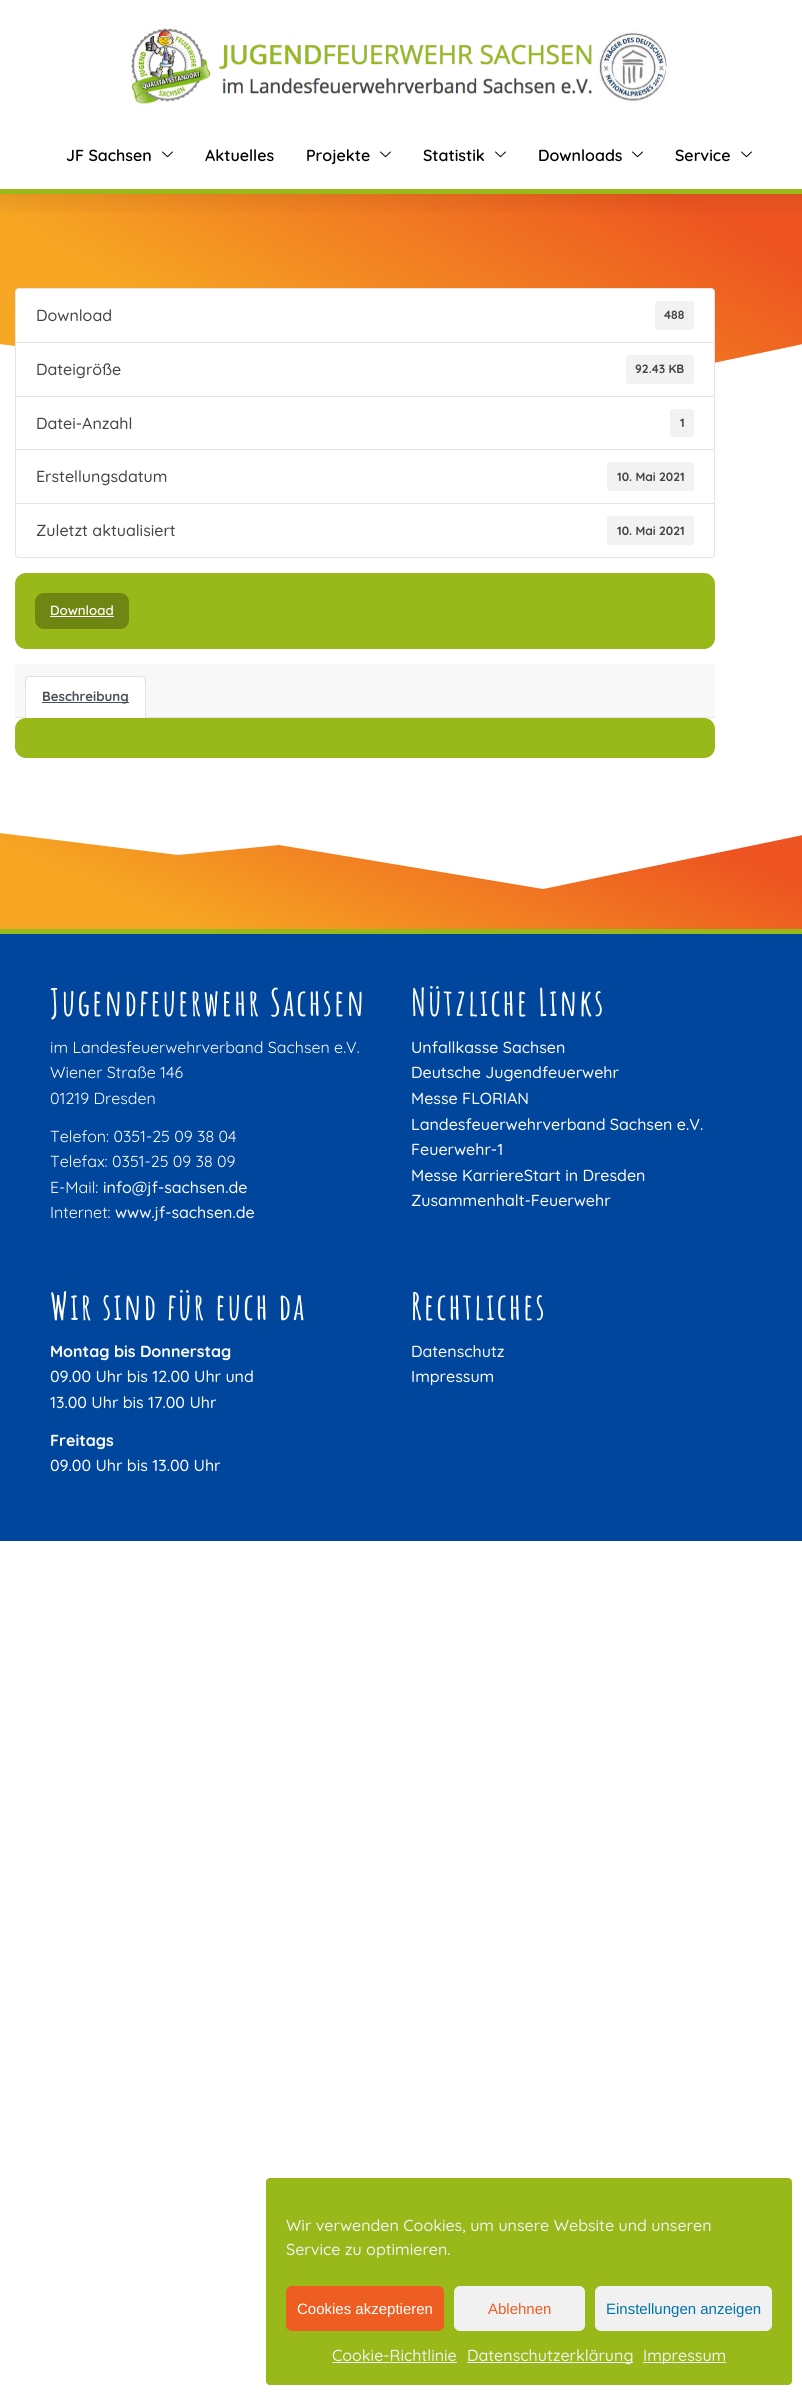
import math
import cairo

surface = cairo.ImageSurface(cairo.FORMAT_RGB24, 802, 2395)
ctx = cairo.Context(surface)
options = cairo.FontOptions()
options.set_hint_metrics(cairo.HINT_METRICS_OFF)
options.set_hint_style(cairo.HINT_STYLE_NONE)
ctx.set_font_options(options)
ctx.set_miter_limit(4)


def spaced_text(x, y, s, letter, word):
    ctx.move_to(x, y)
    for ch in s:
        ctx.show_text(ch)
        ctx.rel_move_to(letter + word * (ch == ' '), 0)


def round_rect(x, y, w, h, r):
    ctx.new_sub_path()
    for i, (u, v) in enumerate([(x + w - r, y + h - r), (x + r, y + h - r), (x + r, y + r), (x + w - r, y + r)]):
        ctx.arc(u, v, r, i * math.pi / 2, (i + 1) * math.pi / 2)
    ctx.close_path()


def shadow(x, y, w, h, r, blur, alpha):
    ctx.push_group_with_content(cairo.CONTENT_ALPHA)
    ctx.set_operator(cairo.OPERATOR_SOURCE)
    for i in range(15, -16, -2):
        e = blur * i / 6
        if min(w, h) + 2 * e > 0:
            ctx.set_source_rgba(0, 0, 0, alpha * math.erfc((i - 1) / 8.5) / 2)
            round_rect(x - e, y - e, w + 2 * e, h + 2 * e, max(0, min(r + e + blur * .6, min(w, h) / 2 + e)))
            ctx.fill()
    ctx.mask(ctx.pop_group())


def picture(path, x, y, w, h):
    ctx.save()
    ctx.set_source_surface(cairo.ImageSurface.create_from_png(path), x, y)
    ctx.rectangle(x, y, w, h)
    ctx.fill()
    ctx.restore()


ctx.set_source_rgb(1, 1, 1)
ctx.paint()
gradient = cairo.LinearGradient(255, 551, 547, 47)
gradient.add_color_stop_rgba(0.28, 0.965, 0.651, 0.137, 1)
gradient.add_color_stop_rgba(0.9, 0.929, 0.329, 0.129, 1)
ctx.set_source(gradient)
ctx.rectangle(0, 194, 802, 169)
ctx.fill()
ctx.save()
ctx.rectangle(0, 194, 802, 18)
ctx.clip()
ctx.set_source_rgb(0, 0, 0)
shadow(0, 5, 802, 194, 0, 15, 0.1)
ctx.restore()
ctx.set_source_rgb(0.6, 0.722, 0.102)
ctx.rectangle(0, 189, 802, 5)
ctx.fill()
picture("img1.png", 131, 28, 538, 76)
ctx.select_font_face("Quicksand SemiBold")
ctx.set_font_size(16)
ctx.set_source_rgb(0, 0, 0)
ctx.move_to(66, 161)
ctx.show_text("JF Sachsen")
picture("img2.png", 162, 151, 11, 7)
ctx.move_to(205, 161)
ctx.show_text("Aktuelles")
ctx.move_to(306, 161)
ctx.show_text("Projekte")
picture("img2.png", 380, 151, 11, 7)
ctx.move_to(423, 161)
ctx.show_text("Statistik")
picture("img2.png", 495, 151, 11, 7)
ctx.move_to(538, 161)
ctx.show_text("Downloads")
picture("img2.png", 632, 151, 11, 7)
ctx.move_to(675, 161)
ctx.show_text("Service")
picture("img2.png", 741, 151, 11, 7)
ctx.set_source_rgb(1, 1, 1)
ctx.new_path()
ctx.move_to(191, 368)
ctx.line_to(286, 358)
ctx.line_to(534, 401)
ctx.line_to(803, 344)
ctx.line_to(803, 405)
ctx.line_to(-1, 405)
ctx.line_to(-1, 344)
ctx.fill()
ctx.new_path()
ctx.move_to(19, 288.5)
ctx.line_to(711, 288.5)
ctx.curve_to(713, 288.5, 714.5, 290, 714.5, 292)
ctx.line_to(714.5, 342.5)
ctx.line_to(15.5, 342.5)
ctx.line_to(15.5, 292)
ctx.curve_to(15.5, 290, 17, 288.5, 19, 288.5)
ctx.close_path()
ctx.fill_preserve()
ctx.set_source_rgb(0.898, 0.898, 0.898)
ctx.set_line_width(1)
ctx.stroke()
ctx.select_font_face("Quicksand Medium")
ctx.set_source_rgb(0.267, 0.267, 0.267)
ctx.move_to(36, 321)
ctx.show_text("Download")
ctx.set_source_rgb(0.949, 0.949, 0.949)
round_rect(655, 301, 39, 29, 3)
ctx.fill()
ctx.select_font_face("Quicksand", cairo.FONT_SLANT_NORMAL, cairo.FONT_WEIGHT_BOLD)
ctx.set_font_size(12)
ctx.set_source_rgb(0.267, 0.267, 0.267)
ctx.move_to(664, 319)
ctx.show_text("488")
ctx.set_source_rgb(1, 1, 1)
ctx.rectangle(16, 343, 698, 20)
ctx.fill()
ctx.rectangle(15.5, 342.5, 699, 54)
ctx.set_source_rgb(0.898, 0.898, 0.898)
ctx.stroke()
ctx.select_font_face("Quicksand Medium")
ctx.set_font_size(16)
ctx.set_source_rgb(0.267, 0.267, 0.267)
ctx.move_to(36, 375)
ctx.show_text("Dateigröße")
ctx.set_source_rgb(0.949, 0.949, 0.949)
round_rect(626, 355, 68, 29, 3)
ctx.fill()
ctx.select_font_face("Quicksand", cairo.FONT_SLANT_NORMAL, cairo.FONT_WEIGHT_BOLD)
ctx.set_font_size(12)
ctx.set_source_rgb(0.267, 0.267, 0.267)
ctx.move_to(635, 373)
ctx.show_text("92.43 KB")
ctx.rectangle(15.5, 396.5, 699, 53)
ctx.set_source_rgb(0.898, 0.898, 0.898)
ctx.stroke()
ctx.select_font_face("Quicksand Medium")
ctx.set_font_size(16)
ctx.set_source_rgb(0.267, 0.267, 0.267)
ctx.move_to(36, 429)
ctx.show_text("Datei-Anzahl")
ctx.set_source_rgb(0.949, 0.949, 0.949)
round_rect(670, 409, 24, 28, 3)
ctx.fill()
ctx.select_font_face("Quicksand", cairo.FONT_SLANT_NORMAL, cairo.FONT_WEIGHT_BOLD)
ctx.set_font_size(12)
ctx.set_source_rgb(0.267, 0.267, 0.267)
ctx.move_to(680, 427)
ctx.show_text("1")
ctx.rectangle(15.5, 449.5, 699, 54)
ctx.set_source_rgb(0.898, 0.898, 0.898)
ctx.stroke()
ctx.select_font_face("Quicksand Medium")
ctx.set_font_size(16)
ctx.set_source_rgb(0.267, 0.267, 0.267)
ctx.move_to(36, 482)
ctx.show_text("Erstellungsdatum")
ctx.set_source_rgb(0.949, 0.949, 0.949)
round_rect(607, 462, 87, 29, 3)
ctx.fill()
ctx.select_font_face("Quicksand", cairo.FONT_SLANT_NORMAL, cairo.FONT_WEIGHT_BOLD)
ctx.set_font_size(12)
ctx.set_source_rgb(0.267, 0.267, 0.267)
ctx.move_to(617, 481)
ctx.show_text("10. Mai 2021")
ctx.set_source_rgb(1, 1, 1)
ctx.new_path()
ctx.move_to(15.5, 503.5)
ctx.line_to(714.5, 503.5)
ctx.line_to(714.5, 554)
ctx.curve_to(714.5, 556, 713, 557.5, 711, 557.5)
ctx.line_to(19, 557.5)
ctx.curve_to(17, 557.5, 15.5, 556, 15.5, 554)
ctx.close_path()
ctx.fill_preserve()
ctx.set_source_rgb(0.898, 0.898, 0.898)
ctx.stroke()
ctx.select_font_face("Quicksand Medium")
ctx.set_font_size(16)
ctx.set_source_rgb(0.267, 0.267, 0.267)
ctx.move_to(36, 536)
ctx.show_text("Zuletzt aktualisiert")
ctx.set_source_rgb(0.949, 0.949, 0.949)
round_rect(607, 516, 87, 29, 3)
ctx.fill()
ctx.select_font_face("Quicksand", cairo.FONT_SLANT_NORMAL, cairo.FONT_WEIGHT_BOLD)
ctx.set_font_size(12)
ctx.set_source_rgb(0.267, 0.267, 0.267)
ctx.move_to(617, 535)
ctx.show_text("10. Mai 2021")
ctx.set_source_rgb(0.6, 0.722, 0.102)
round_rect(15, 573, 700, 76, 11)
ctx.fill()
ctx.set_source_rgb(0.435, 0.525, 0.071)
round_rect(35, 593, 94, 36, 9)
ctx.fill()
ctx.select_font_face("Quicksand SemiBold")
ctx.set_font_size(13.25)
ctx.set_source_rgb(1, 1, 1)
ctx.move_to(50, 615)
ctx.show_text("Download")
ctx.rectangle(50, 616, 64, 1)
ctx.fill()
ctx.set_source_rgb(0.969, 0.969, 0.969)
ctx.new_path()
ctx.move_to(18, 664)
ctx.line_to(712, 664)
ctx.curve_to(713.5, 664, 715, 665.5, 715, 667)
ctx.line_to(715, 718)
ctx.line_to(15, 718)
ctx.line_to(15, 667)
ctx.curve_to(15, 665.5, 16.5, 664, 18, 664)
ctx.close_path()
ctx.fill()
ctx.set_source_rgb(0.898, 0.898, 0.898)
ctx.rectangle(15, 717, 700, 1)
ctx.fill()
ctx.set_source_rgb(1, 1, 1)
ctx.new_path()
ctx.move_to(29, 676)
ctx.line_to(142, 676)
ctx.curve_to(144, 676, 146, 678, 146, 680)
ctx.line_to(146, 718)
ctx.line_to(25, 718)
ctx.line_to(25, 680)
ctx.curve_to(25, 678, 27, 676, 29, 676)
ctx.close_path()
ctx.fill()
ctx.set_source_rgb(0.871, 0.886, 0.902)
ctx.new_path()
ctx.move_to(29, 676)
ctx.line_to(26, 677)
ctx.line_to(27, 678)
ctx.line_to(29, 677)
ctx.line_to(142, 677)
ctx.line_to(144, 678)
ctx.line_to(145, 677)
ctx.line_to(142, 676)
ctx.close_path()
ctx.fill()
ctx.new_path()
ctx.move_to(146, 718)
ctx.line_to(146, 680)
ctx.curve_to(146, 679, 146, 678, 145, 677)
ctx.line_to(144, 678)
ctx.curve_to(146, 680, 145, 712, 145, 717)
ctx.close_path()
ctx.fill()
ctx.set_source_rgb(1, 1, 1)
ctx.new_path()
ctx.move_to(146, 718)
ctx.line_to(145, 717)
ctx.line_to(26, 717)
ctx.line_to(25, 718)
ctx.close_path()
ctx.fill()
ctx.set_source_rgb(0.871, 0.886, 0.902)
ctx.new_path()
ctx.move_to(25, 718)
ctx.line_to(26, 717)
ctx.curve_to(26, 712, 25, 680, 27, 678)
ctx.line_to(26, 677)
ctx.line_to(25, 680)
ctx.close_path()
ctx.fill()
ctx.set_source_rgb(0.286, 0.314, 0.341)
ctx.rectangle(42, 702, 87, 1)
ctx.fill()
ctx.select_font_face("Quicksand", cairo.FONT_SLANT_NORMAL, cairo.FONT_WEIGHT_BOLD)
ctx.move_to(42, 701)
ctx.show_text("Beschreibung")
ctx.set_source_rgb(0.6, 0.722, 0.102)
round_rect(15, 718, 700, 40, 11)
ctx.fill()
gradient = cairo.LinearGradient(304, 1158, 498, 700)
gradient.add_color_stop_rgba(0.34, 0.965, 0.651, 0.137, 1)
gradient.add_color_stop_rgba(0.9, 0.929, 0.329, 0.129, 1)
ctx.set_source(gradient)
ctx.rectangle(0, 833, 802, 96)
ctx.fill()
ctx.set_source_rgb(1, 1, 1)
ctx.new_path()
ctx.move_to(178, 855)
ctx.line_to(279, 845)
ctx.line_to(543, 889)
ctx.line_to(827, 830)
ctx.line_to(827, 828)
ctx.line_to(-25, 828)
ctx.line_to(-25, 830)
ctx.fill()
ctx.set_source_rgb(0, 0.275, 0.616)
ctx.rectangle(0, 934, 802, 607)
ctx.fill()
ctx.set_source_rgb(0.6, 0.722, 0.102)
ctx.rectangle(0, 929, 802, 5)
ctx.fill()
ctx.select_font_face("Amatic SC", cairo.FONT_SLANT_NORMAL, cairo.FONT_WEIGHT_BOLD)
ctx.set_font_size(37)
ctx.set_source_rgb(1, 1, 1)
spaced_text(50, 1016, "Jugendfeuerwehr Sachsen", 2, 0)
ctx.select_font_face("Quicksand")
ctx.set_font_size(16)
ctx.move_to(50, 1053)
ctx.show_text("im Landesfeuerwehrverband Sachsen e.V.")
ctx.move_to(50, 1078)
ctx.show_text("Wiener Straße 146")
ctx.move_to(50, 1104)
ctx.show_text("01219 Dresden")
ctx.move_to(50, 1142)
ctx.show_text("Telefon: 0351-25 09 38 04")
ctx.move_to(50, 1167)
ctx.show_text("Telefax: 0351-25 09 38 09")
ctx.move_to(50, 1193)
ctx.show_text("E-Mail:")
ctx.select_font_face("Quicksand Medium")
ctx.move_to(103, 1193)
ctx.show_text("info@jf-sachsen.de")
ctx.select_font_face("Quicksand")
ctx.move_to(50, 1218)
ctx.show_text("Internet:")
ctx.select_font_face("Quicksand Medium")
ctx.move_to(115, 1218)
ctx.show_text("www.jf-sachsen.de")
ctx.select_font_face("Amatic SC", cairo.FONT_SLANT_NORMAL, cairo.FONT_WEIGHT_BOLD)
ctx.set_font_size(37)
spaced_text(411, 1016, "Nützliche Links", 2, 0)
ctx.select_font_face("Quicksand Medium")
ctx.set_font_size(16)
ctx.move_to(411, 1053)
ctx.show_text("Unfallkasse Sachsen")
ctx.move_to(411, 1078)
ctx.show_text("Deutsche Jugendfeuerwehr")
ctx.move_to(411, 1104)
ctx.show_text("Messe FLORIAN")
ctx.move_to(411, 1130)
ctx.show_text("Landesfeuerwehrverband Sachsen e.V.")
ctx.move_to(411, 1155)
ctx.show_text("Feuerwehr-1")
ctx.move_to(411, 1181)
ctx.show_text("Messe KarriereStart in Dresden")
ctx.move_to(411, 1206)
ctx.show_text("Zusammenhalt-Feuerwehr")
ctx.select_font_face("Amatic SC", cairo.FONT_SLANT_NORMAL, cairo.FONT_WEIGHT_BOLD)
ctx.set_font_size(37)
spaced_text(50, 1320, "Wir sind für euch da", 2, 0)
ctx.select_font_face("Quicksand", cairo.FONT_SLANT_NORMAL, cairo.FONT_WEIGHT_BOLD)
ctx.set_font_size(16)
ctx.move_to(50, 1357)
ctx.show_text("Montag bis Donnerstag")
ctx.select_font_face("Quicksand Medium")
ctx.move_to(50, 1382)
ctx.show_text("09.00 Uhr bis 12.00 Uhr und")
ctx.move_to(50, 1408)
ctx.show_text("13.00 Uhr bis 17.00 Uhr")
ctx.select_font_face("Quicksand", cairo.FONT_SLANT_NORMAL, cairo.FONT_WEIGHT_BOLD)
ctx.move_to(50, 1446)
ctx.show_text("Freitags")
ctx.select_font_face("Quicksand Medium")
ctx.move_to(50, 1471)
ctx.show_text("09.00 Uhr bis 13.00 Uhr")
ctx.select_font_face("Amatic SC", cairo.FONT_SLANT_NORMAL, cairo.FONT_WEIGHT_BOLD)
ctx.set_font_size(37)
spaced_text(411, 1320, "Rechtliches", 2, 0)
ctx.select_font_face("Quicksand Medium")
ctx.set_font_size(16)
ctx.move_to(411, 1357)
ctx.show_text("Datenschutz")
ctx.move_to(411, 1382)
ctx.show_text("Impressum")
ctx.set_source_rgb(0.6, 0.722, 0.102)
round_rect(266, 2178, 526, 207, 4)
ctx.fill()
ctx.set_source_rgb(0.945, 0.945, 0.945)
ctx.move_to(286, 2231)
ctx.show_text("Wir verwenden Cookies, um unsere Website und unseren")
ctx.move_to(286, 2255)
ctx.show_text("Service zu optimieren.")
ctx.set_source_rgb(0.933, 0.369, 0.133)
round_rect(286.5, 2286.5, 157, 44, 5.5)
ctx.fill_preserve()
ctx.stroke()
ctx.select_font_face("Liberation Sans")
ctx.set_font_size(15)
ctx.set_source_rgb(1, 1, 1)
ctx.move_to(297, 2314)
ctx.show_text("Cookies akzeptieren")
ctx.set_source_rgb(0.945, 0.945, 0.945)
round_rect(454.5, 2286.5, 130, 44, 5.5)
ctx.fill_preserve()
ctx.stroke()
ctx.set_source_rgb(0.933, 0.369, 0.133)
ctx.move_to(488, 2314)
ctx.show_text("Ablehnen")
ctx.set_source_rgb(0.945, 0.945, 0.945)
round_rect(595.5, 2286.5, 176, 44, 5.5)
ctx.fill_preserve()
ctx.stroke()
ctx.set_source_rgb(0, 0.451, 0.667)
ctx.move_to(606, 2314)
ctx.show_text("Einstellungen anzeigen")
ctx.select_font_face("Quicksand Medium")
ctx.set_font_size(16)
ctx.set_source_rgb(0.945, 0.945, 0.945)
ctx.move_to(332, 2361)
ctx.show_text("Cookie-Richtlinie")
ctx.rectangle(332, 2362, 125, 1)
ctx.fill()
ctx.rectangle(467, 2362, 166, 1)
ctx.fill()
ctx.move_to(467, 2361)
ctx.show_text("Datenschutzerklärung")
ctx.rectangle(643, 2362, 83, 1)
ctx.fill()
ctx.move_to(643, 2361)
ctx.show_text("Impressum")
surface.write_to_png("page.png")
